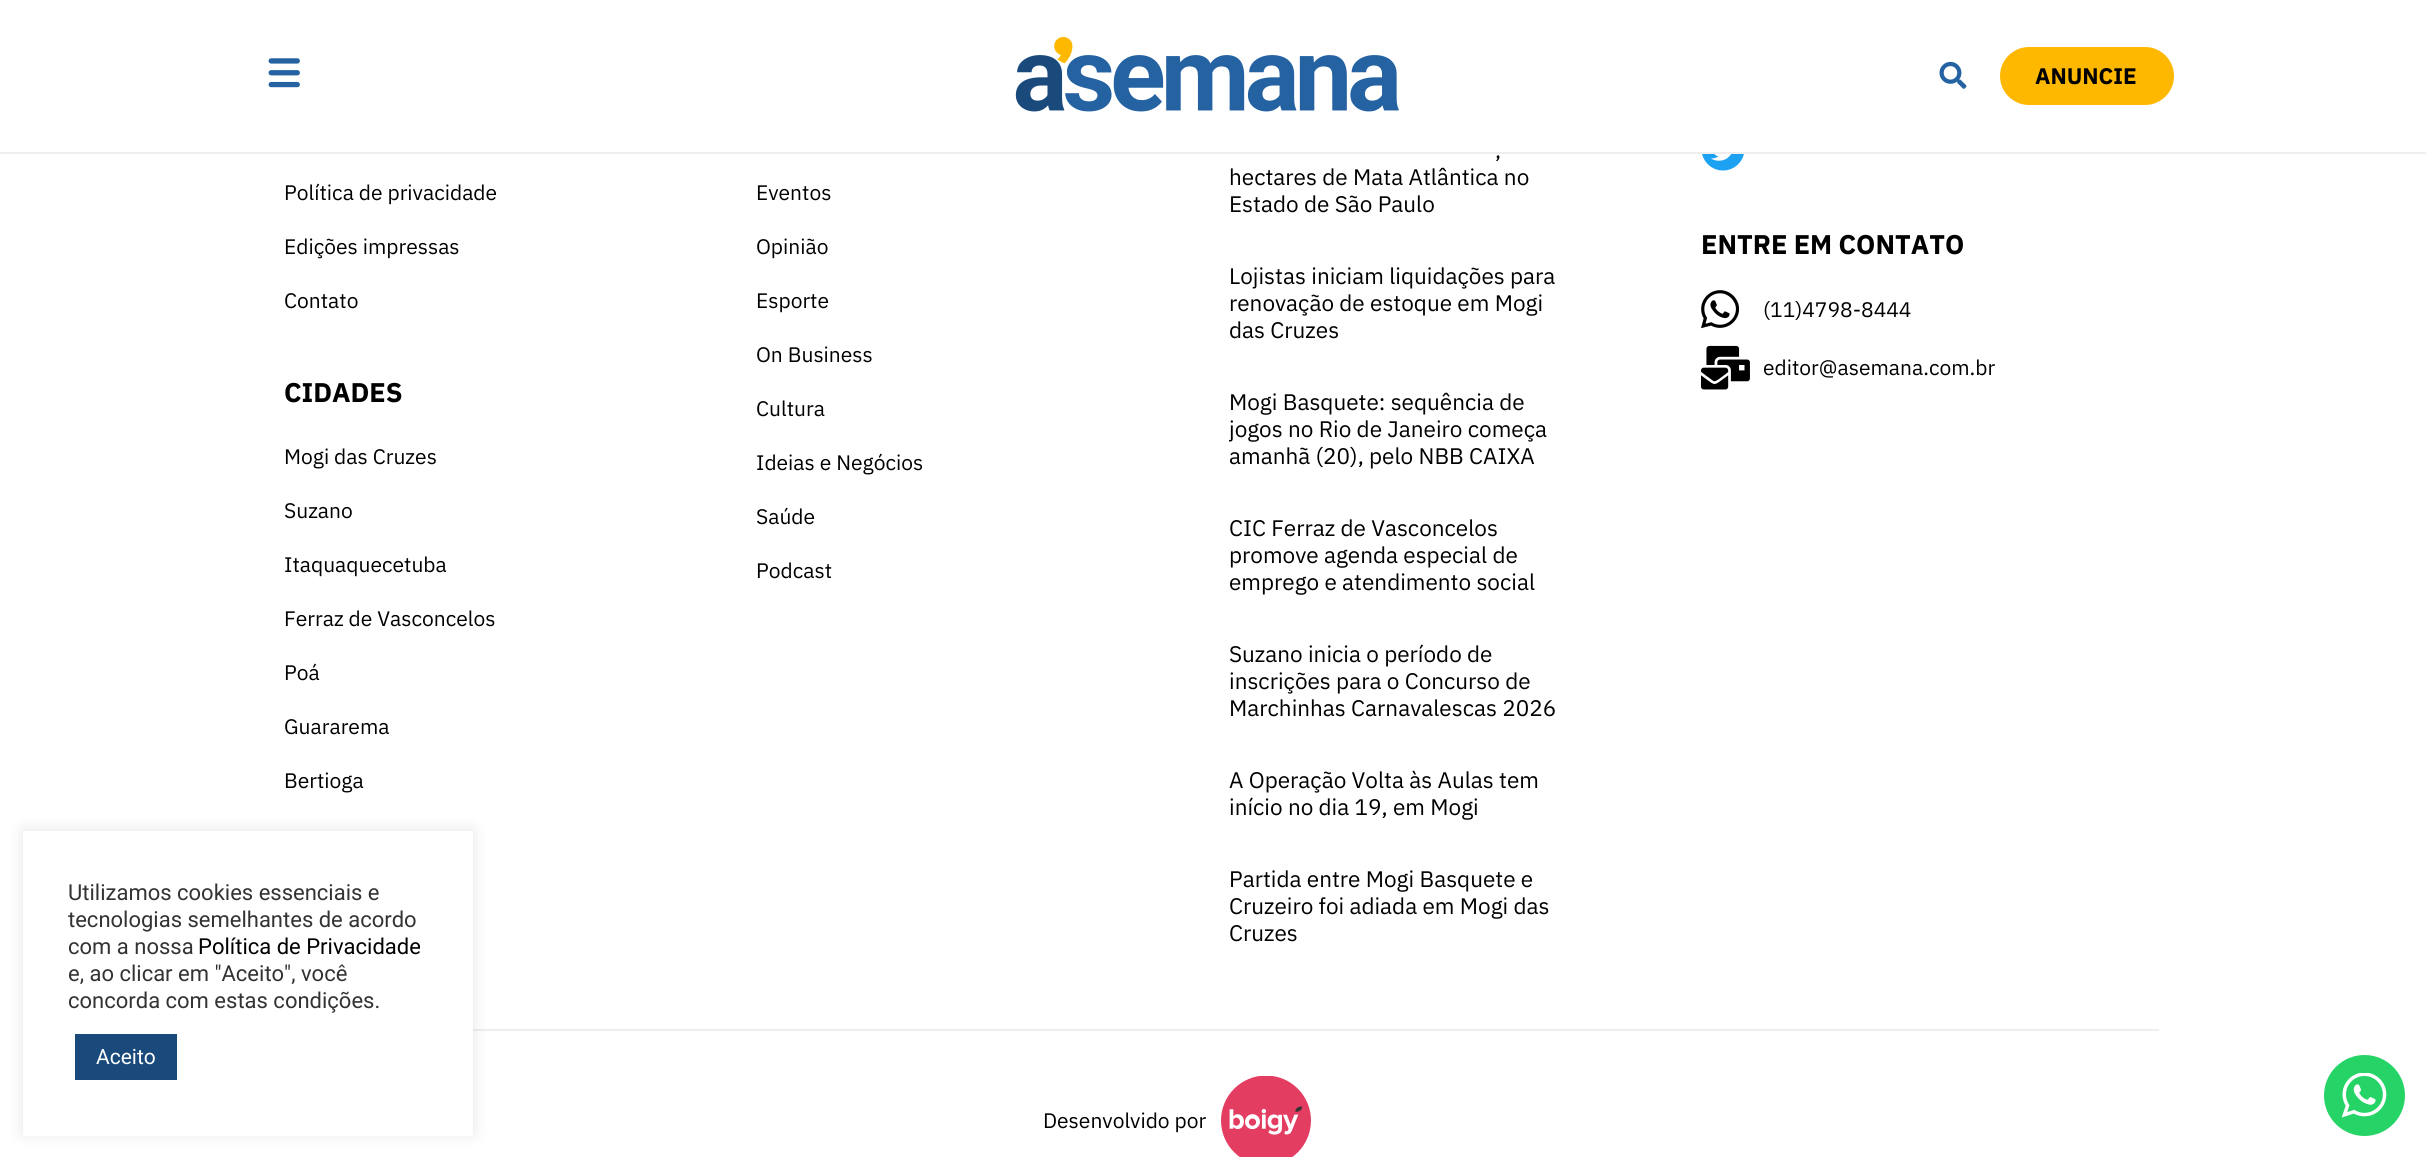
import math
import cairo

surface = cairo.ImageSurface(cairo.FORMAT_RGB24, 2426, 1157)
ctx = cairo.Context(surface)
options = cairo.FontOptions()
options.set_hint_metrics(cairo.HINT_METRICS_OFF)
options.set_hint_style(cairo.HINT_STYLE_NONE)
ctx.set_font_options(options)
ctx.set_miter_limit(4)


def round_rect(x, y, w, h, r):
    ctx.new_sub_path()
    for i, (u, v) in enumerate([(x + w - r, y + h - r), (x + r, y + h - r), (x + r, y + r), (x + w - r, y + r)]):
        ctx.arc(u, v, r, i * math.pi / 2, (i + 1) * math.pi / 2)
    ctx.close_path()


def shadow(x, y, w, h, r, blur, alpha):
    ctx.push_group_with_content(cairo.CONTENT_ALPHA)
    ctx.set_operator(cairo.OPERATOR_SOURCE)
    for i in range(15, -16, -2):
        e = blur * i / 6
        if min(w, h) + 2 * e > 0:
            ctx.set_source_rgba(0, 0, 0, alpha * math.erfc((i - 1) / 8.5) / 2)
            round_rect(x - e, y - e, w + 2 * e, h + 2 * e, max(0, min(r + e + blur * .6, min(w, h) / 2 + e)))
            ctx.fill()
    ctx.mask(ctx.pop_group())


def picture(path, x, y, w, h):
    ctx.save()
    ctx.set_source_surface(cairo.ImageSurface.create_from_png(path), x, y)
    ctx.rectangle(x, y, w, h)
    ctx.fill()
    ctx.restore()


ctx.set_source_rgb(1, 1, 1)
ctx.paint()
ctx.set_source_rgb(0.933, 0.933, 0.933)
ctx.rectangle(473, 1029, 1686, 2)
ctx.fill()
ctx.set_source_rgb(0.675, 0.671, 0.671)
shadow(23, 830, 450, 304, 0, 7.5, 0.3)
ctx.set_source_rgb(1, 1, 1)
ctx.rectangle(23, 831, 450, 305)
ctx.fill()
ctx.select_font_face("Roboto")
ctx.set_font_size(22)
ctx.set_source_rgb(0.2, 0.2, 0.2)
ctx.move_to(68, 900)
ctx.show_text("Utilizamos cookies essenciais e")
ctx.move_to(68, 927)
ctx.show_text("tecnologias semelhantes de acordo")
ctx.move_to(68, 954)
ctx.show_text("com a nossa")
ctx.set_source_rgb(0, 0, 0)
ctx.move_to(198, 954)
ctx.show_text("Política de Privacidade")
ctx.set_source_rgb(0.2, 0.2, 0.2)
ctx.move_to(68, 981)
ctx.show_text("e, ao clicar em \"Aceito\", você")
ctx.move_to(68, 1008)
ctx.show_text("concorda com estas condições.")
ctx.set_source_rgb(0.102, 0.29, 0.482)
ctx.rectangle(75, 1034, 102, 46)
ctx.fill()
ctx.set_font_size(21)
ctx.set_source_rgb(1, 1, 1)
ctx.move_to(96, 1064)
ctx.show_text("Aceito")
ctx.set_source_rgb(0.933, 0.933, 0.933)
ctx.rectangle(0, 152, 2426, 2)
ctx.fill()
picture("img1.png", 268, 58, 32, 30)
picture("img2.png", 1015, 36, 384, 76)
picture("img3.png", 1939, 61, 28, 28)
ctx.set_source_rgb(1, 0.722, 0)
round_rect(2000, 47, 174, 58, 29)
ctx.fill()
ctx.select_font_face("IBM Plex Sans", cairo.FONT_SLANT_NORMAL, cairo.FONT_WEIGHT_BOLD)
ctx.set_font_size(22.5)
ctx.set_source_rgb(0, 0, 0)
ctx.move_to(2035, 84)
ctx.show_text("ANUNCIE")
ctx.select_font_face("IBM Plex Sans")
ctx.set_font_size(21)
ctx.move_to(284, 200)
ctx.show_text("Política de privacidade")
ctx.move_to(284, 254)
ctx.show_text("Edições impressas")
ctx.move_to(284, 308)
ctx.show_text("Contato")
ctx.select_font_face("IBM Plex Sans", cairo.FONT_SLANT_NORMAL, cairo.FONT_WEIGHT_BOLD)
ctx.set_font_size(27)
ctx.move_to(284, 402)
ctx.show_text("CIDADES")
ctx.select_font_face("IBM Plex Sans")
ctx.set_font_size(21)
ctx.move_to(284, 464)
ctx.show_text("Mogi das Cruzes")
ctx.move_to(284, 518)
ctx.show_text("Suzano")
ctx.move_to(284, 572)
ctx.show_text("Itaquaquecetuba")
ctx.move_to(284, 626)
ctx.show_text("Ferraz de Vasconcelos")
ctx.move_to(284, 680)
ctx.show_text("Poá")
ctx.move_to(284, 734)
ctx.show_text("Guararema")
ctx.move_to(284, 788)
ctx.show_text("Bertioga")
ctx.move_to(756, 200)
ctx.show_text("Eventos")
ctx.move_to(756, 254)
ctx.show_text("Opinião")
ctx.move_to(756, 308)
ctx.show_text("Esporte")
ctx.move_to(756, 362)
ctx.show_text("On Business")
ctx.move_to(756, 416)
ctx.show_text("Cultura")
ctx.move_to(756, 470)
ctx.show_text("Ideias e Negócios")
ctx.move_to(756, 524)
ctx.show_text("Saúde")
ctx.move_to(756, 578)
ctx.show_text("Podcast")
ctx.set_font_size(22.5)
ctx.move_to(1495, 158)
ctx.show_text(",")
ctx.move_to(1229, 185)
ctx.show_text("hectares de Mata Atlântica no")
ctx.move_to(1229, 212)
ctx.show_text("Estado de São Paulo")
ctx.move_to(1229, 284)
ctx.show_text("Lojistas iniciam liquidações para")
ctx.move_to(1229, 311)
ctx.show_text("renovação de estoque em Mogi")
ctx.move_to(1229, 338)
ctx.show_text("das Cruzes")
ctx.move_to(1229, 410)
ctx.show_text("Mogi Basquete: sequência de")
ctx.move_to(1229, 437)
ctx.show_text("jogos no Rio de Janeiro começa")
ctx.move_to(1229, 464)
ctx.show_text("amanhã (20), pelo NBB CAIXA")
ctx.move_to(1229, 536)
ctx.show_text("CIC Ferraz de Vasconcelos")
ctx.move_to(1229, 563)
ctx.show_text("promove agenda especial de")
ctx.move_to(1229, 590)
ctx.show_text("emprego e atendimento social")
ctx.move_to(1229, 662)
ctx.show_text("Suzano inicia o período de")
ctx.move_to(1229, 689)
ctx.show_text("inscrições para o Concurso de")
ctx.move_to(1229, 716)
ctx.show_text("Marchinhas Carnavalescas 2026")
ctx.move_to(1229, 788)
ctx.show_text("A Operação Volta às Aulas tem")
ctx.move_to(1229, 815)
ctx.show_text("início no dia 19, em Mogi")
ctx.move_to(1229, 887)
ctx.show_text("Partida entre Mogi Basquete e")
ctx.move_to(1229, 914)
ctx.show_text("Cruzeiro foi adiada em Mogi das")
ctx.move_to(1229, 941)
ctx.show_text("Cruzes")
picture("img4.png", 1702, 154, 42, 17)
ctx.select_font_face("IBM Plex Sans", cairo.FONT_SLANT_NORMAL, cairo.FONT_WEIGHT_BOLD)
ctx.set_font_size(27)
ctx.move_to(1701, 254)
ctx.show_text("ENTRE EM CONTATO")
picture("img5.png", 1701, 290, 39, 39)
ctx.select_font_face("IBM Plex Sans")
ctx.set_font_size(21)
ctx.move_to(1763, 317)
ctx.show_text("(11)4798-8444")
picture("img6.png", 1701, 345, 49, 45)
ctx.move_to(1763, 375)
ctx.show_text("editor@asemana.com.br")
ctx.move_to(1043, 1128)
ctx.show_text("Desenvolvido por")
picture("img7.png", 1221, 1076, 90, 81)
ctx.set_source_rgb(0.145, 0.827, 0.4)
ctx.arc(2364.5, 1095.5, 40.5, 0, 2 * math.pi)
ctx.fill()
picture("img8.png", 2342, 1073, 45, 45)
surface.write_to_png("page.png")
